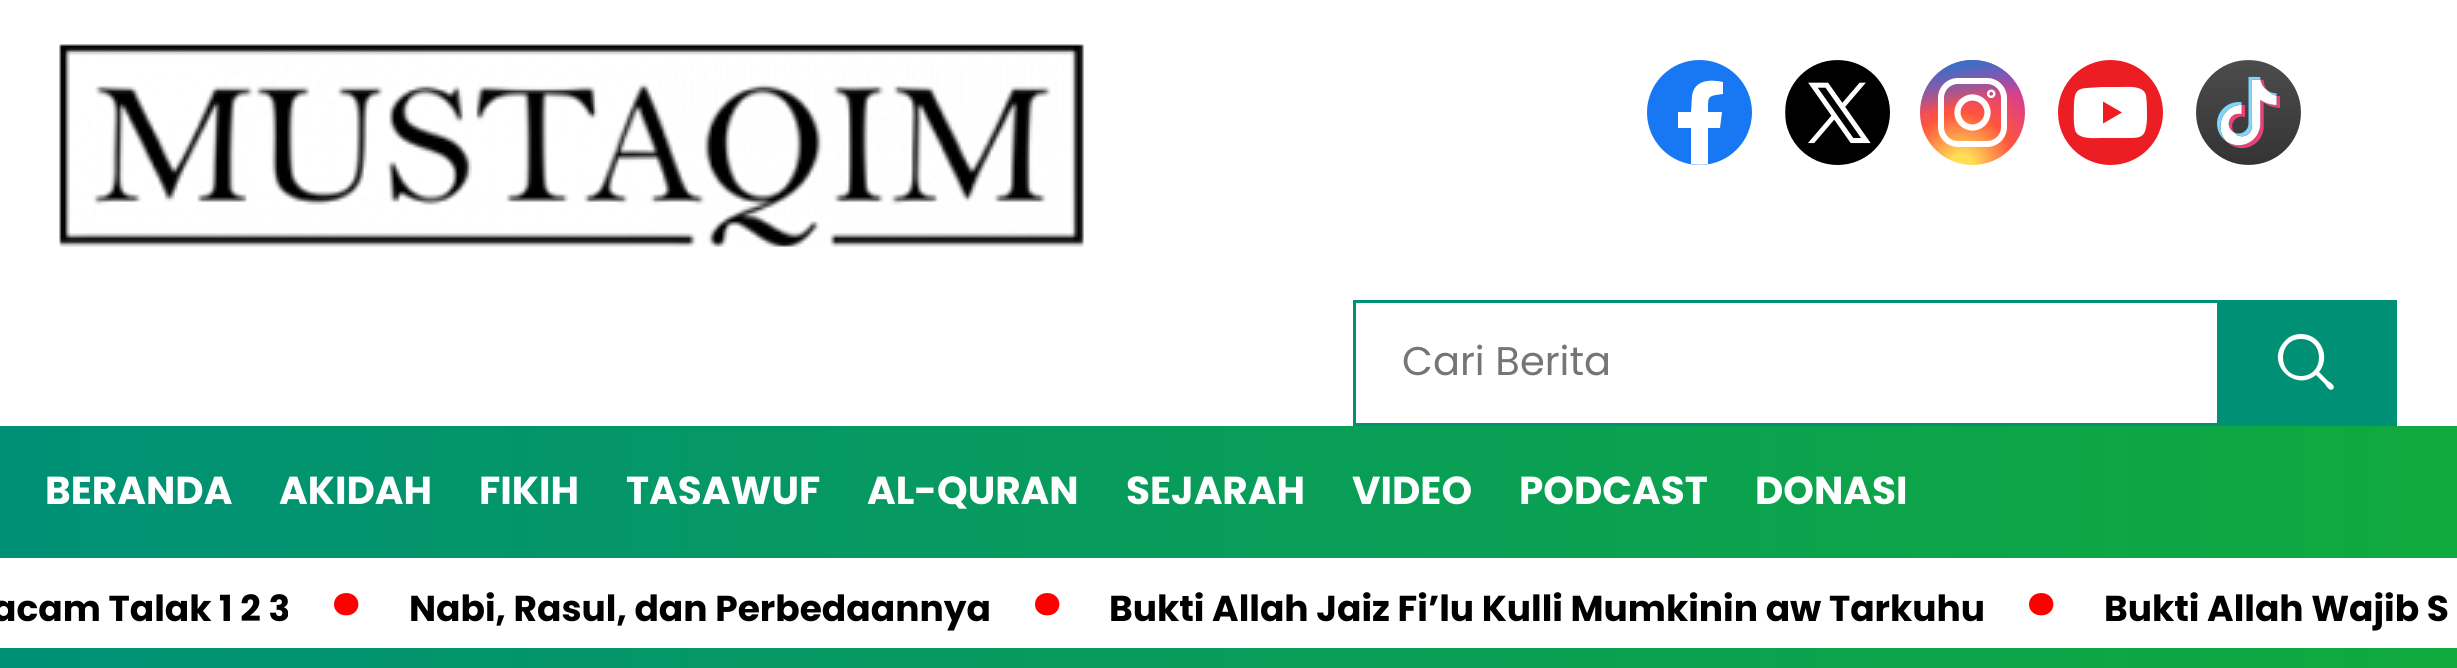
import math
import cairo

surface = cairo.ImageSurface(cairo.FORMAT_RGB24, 2457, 668)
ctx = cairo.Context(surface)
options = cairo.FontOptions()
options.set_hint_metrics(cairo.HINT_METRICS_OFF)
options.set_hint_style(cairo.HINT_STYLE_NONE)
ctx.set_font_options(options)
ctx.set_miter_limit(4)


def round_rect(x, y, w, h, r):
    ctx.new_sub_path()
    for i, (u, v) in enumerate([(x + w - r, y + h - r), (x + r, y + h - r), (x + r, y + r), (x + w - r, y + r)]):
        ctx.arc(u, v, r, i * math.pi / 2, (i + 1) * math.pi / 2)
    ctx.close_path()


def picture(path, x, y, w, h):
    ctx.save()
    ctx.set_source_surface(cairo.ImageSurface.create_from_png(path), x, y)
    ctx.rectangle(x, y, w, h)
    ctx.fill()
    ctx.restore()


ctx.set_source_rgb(1, 1, 1)
ctx.paint()
picture("img1.png", 59, 44, 1025, 203)
ctx.set_source_rgb(0.094, 0.467, 0.949)
ctx.arc(1699.5, 112.5, 52.5, 0, 2 * math.pi)
ctx.fill()
ctx.set_source_rgb(1, 1, 1)
ctx.new_path()
ctx.move_to(1720, 128)
ctx.line_to(1708, 128)
ctx.line_to(1708, 164)
ctx.curve_to(1702, 165, 1697, 165, 1691, 164)
ctx.line_to(1691, 128)
ctx.line_to(1678, 128)
ctx.line_to(1678, 112)
ctx.line_to(1691, 112)
ctx.line_to(1692, 96)
ctx.curve_to(1694, 80, 1710, 79, 1723, 82)
ctx.line_to(1723, 94)
ctx.curve_to(1707, 96, 1708, 96, 1708, 112)
ctx.line_to(1722, 112)
ctx.close_path()
ctx.fill()
picture("img2.png", 1785, 60, 105, 105)
gradient = cairo.RadialGradient(1962, 165, 0, 1962, 165, 105)
gradient.add_color_stop_rgba(0.1, 1, 0.867, 0.333, 1)
gradient.add_color_stop_rgba(0.5, 1, 0.329, 0.243, 1)
gradient.add_color_stop_rgba(1, 0.784, 0.216, 0.671, 1)
ctx.set_source(gradient)
ctx.arc(1972.5, 112.5, 52.5, 0, 2 * math.pi)
ctx.fill()
gradient = cairo.LinearGradient(1920, 60, 1941, 165)
gradient.add_color_stop_rgba(0.1, 0.216, 0.443, 0.784, 1)
gradient.add_color_stop_rgba(0.5, 0.216, 0.443, 0.784, 0)
ctx.set_source(gradient)
ctx.arc(1972.5, 112.5, 52.5, 0, 2 * math.pi)
ctx.fill()
round_rect(1941, 81, 63, 63, 17)
ctx.set_source_rgb(1, 1, 1)
ctx.set_line_width(6)
ctx.stroke()
ctx.arc(1972.5, 112.5, 15, 0, 2 * math.pi)
ctx.set_line_width(6.2)
ctx.stroke()
ctx.arc(1991.2, 93.8, 1.2, 0, 2 * math.pi)
ctx.stroke()
ctx.set_source_rgb(0.929, 0.114, 0.141)
ctx.arc(2110.5, 112.5, 52.5, 0, 2 * math.pi)
ctx.fill()
ctx.set_source_rgb(1, 1, 1)
ctx.new_path()
ctx.move_to(2146, 95)
ctx.curve_to(2143, 85, 2127, 87, 2120, 87)
ctx.line_to(2102, 87)
ctx.line_to(2086, 88)
ctx.curve_to(2076, 89, 2075, 93, 2074, 102)
ctx.curve_to(2074, 112, 2073, 121, 2075, 130)
ctx.curve_to(2078, 140, 2095, 138, 2101, 138)
ctx.line_to(2120, 138)
ctx.curve_to(2141, 138, 2146, 140, 2147, 118)
ctx.curve_to(2147, 110, 2147, 102, 2146, 95)
ctx.fill()
ctx.set_source_rgb(0.929, 0.114, 0.141)
ctx.new_path()
ctx.move_to(2103, 101.5)
ctx.line_to(2103, 123.5)
ctx.line_to(2122, 112.5)
ctx.fill()
picture("img3.png", 2196, 60, 105, 105)
ctx.rectangle(1354.5, 301.5, 864, 123)
ctx.set_source_rgb(0, 0.565, 0.463)
ctx.set_line_width(3)
ctx.stroke()
ctx.select_font_face("Poppins")
ctx.set_font_size(40)
ctx.set_source_rgb(0.459, 0.459, 0.459)
ctx.move_to(1402, 375)
ctx.show_text("Cari Berita")
ctx.set_source_rgb(0, 0.565, 0.463)
ctx.rectangle(2220, 300, 177, 126)
ctx.fill()
ctx.set_source_rgb(1, 1, 1)
ctx.new_path()
ctx.move_to(2301, 334)
ctx.curve_to(2295, 334, 2289, 336, 2285, 341)
ctx.curve_to(2264, 362, 2294, 393, 2316, 375)
ctx.line_to(2325, 384)
ctx.curve_to(2326, 386, 2330, 392, 2333, 389)
ctx.curve_to(2336, 386, 2330, 382, 2328, 381)
ctx.line_to(2319, 372)
ctx.curve_to(2331, 357, 2321, 334, 2301, 334)
ctx.close_path()
ctx.move_to(2301, 339)
ctx.curve_to(2325, 339, 2325, 376, 2301, 376)
ctx.curve_to(2277, 376, 2277, 339, 2301, 339)
ctx.close_path()
ctx.fill()
gradient = cairo.LinearGradient(0, 492, 2457, 492)
gradient.add_color_stop_rgba(0, 0, 0.565, 0.463, 1)
gradient.add_color_stop_rgba(1, 0.063, 0.663, 0.243, 1)
ctx.set_source(gradient)
ctx.rectangle(0, 426, 2457, 132)
ctx.fill()
ctx.select_font_face("Poppins", cairo.FONT_SLANT_NORMAL, cairo.FONT_WEIGHT_BOLD)
ctx.set_font_size(39)
ctx.set_source_rgb(1, 1, 1)
ctx.move_to(45, 504)
ctx.show_text("BERANDA")
ctx.move_to(279, 504)
ctx.show_text("AKIDAH")
ctx.move_to(479, 504)
ctx.show_text("FIKIH")
ctx.move_to(626, 504)
ctx.show_text("TASAWUF")
ctx.move_to(867, 504)
ctx.show_text("AL-QURAN")
ctx.move_to(1126, 504)
ctx.show_text("SEJARAH")
ctx.move_to(1352, 504)
ctx.show_text("VIDEO")
ctx.move_to(1519, 504)
ctx.show_text("PODCAST")
ctx.move_to(1755, 504)
ctx.show_text("DONASI")
ctx.set_font_size(36)
ctx.set_source_rgb(0, 0, 0)
ctx.move_to(-8, 621)
ctx.show_text("acam Talak 1 2 3")
ctx.set_font_size(120)
ctx.set_source_rgb(1, 0, 0)
ctx.move_to(328, 642)
ctx.show_text("·")
ctx.set_font_size(36)
ctx.set_source_rgb(0, 0, 0)
ctx.move_to(409, 621)
ctx.show_text("Nabi, Rasul, dan Perbedaannya")
ctx.set_font_size(120)
ctx.set_source_rgb(1, 0, 0)
ctx.move_to(1029, 642)
ctx.show_text("·")
ctx.set_font_size(36)
ctx.set_source_rgb(0, 0, 0)
ctx.move_to(1109, 621)
ctx.show_text("Bukti Allah Jaiz Fi’lu Kulli Mumkinin aw Tarkuhu")
ctx.set_font_size(120)
ctx.set_source_rgb(1, 0, 0)
ctx.move_to(2023, 642)
ctx.show_text("·")
ctx.set_font_size(36)
ctx.set_source_rgb(0, 0, 0)
ctx.move_to(2104, 621)
ctx.show_text("Bukti Allah Wajib S")
gradient = cairo.LinearGradient(0, 459, 2457, 459)
gradient.add_color_stop_rgba(0, 0, 0.565, 0.463, 1)
gradient.add_color_stop_rgba(1, 0.063, 0.663, 0.243, 1)
ctx.set_source(gradient)
ctx.rectangle(0, 648, 2457, 20)
ctx.fill()
surface.write_to_png("page.png")
